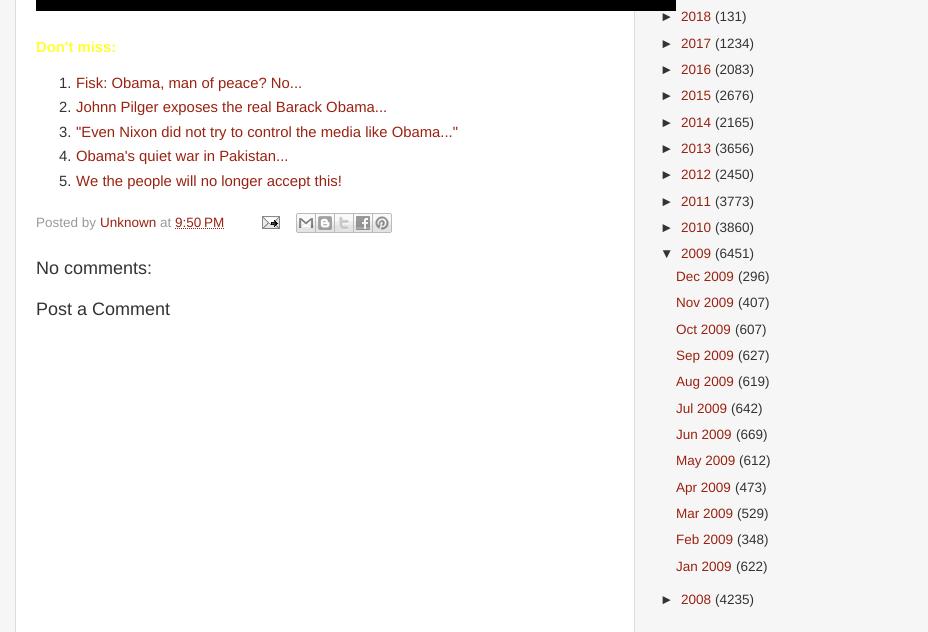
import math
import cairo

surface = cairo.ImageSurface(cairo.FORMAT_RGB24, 928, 632)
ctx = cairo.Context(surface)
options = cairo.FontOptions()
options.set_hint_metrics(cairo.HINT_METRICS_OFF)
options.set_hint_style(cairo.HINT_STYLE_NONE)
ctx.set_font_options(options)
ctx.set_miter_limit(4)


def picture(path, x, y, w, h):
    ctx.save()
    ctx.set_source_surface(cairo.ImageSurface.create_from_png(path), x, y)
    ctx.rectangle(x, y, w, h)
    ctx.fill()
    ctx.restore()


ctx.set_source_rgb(0.961, 0.961, 0.961)
ctx.paint()
ctx.set_source_rgb(1, 1, 1)
ctx.rectangle(15.5, -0.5, 619, 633)
ctx.fill_preserve()
ctx.set_source_rgb(0.867, 0.867, 0.867)
ctx.set_line_width(1)
ctx.stroke()
ctx.set_source_rgb(0, 0, 0)
ctx.rectangle(36, 0, 640, 11)
ctx.fill()
ctx.select_font_face("Liberation Sans", cairo.FONT_SLANT_NORMAL, cairo.FONT_WEIGHT_BOLD)
ctx.set_font_size(14.85)
ctx.set_source_rgb(1, 1, 0.2)
ctx.move_to(36, 52)
ctx.show_text("Don't miss:")
ctx.select_font_face("Liberation Sans")
ctx.set_source_rgb(0.2, 0.2, 0.2)
ctx.move_to(59, 88)
ctx.show_text("1.")
ctx.set_source_rgb(0.6, 0.133, 0.067)
ctx.move_to(76, 88)
ctx.show_text("Fisk: Obama, man of peace? No...")
ctx.set_source_rgb(0.2, 0.2, 0.2)
ctx.move_to(59, 112)
ctx.show_text("2.")
ctx.set_source_rgb(0.6, 0.133, 0.067)
ctx.move_to(76, 112)
ctx.show_text("Johnn Pilger exposes the real Barack Obama...")
ctx.set_source_rgb(0.2, 0.2, 0.2)
ctx.move_to(59, 137)
ctx.show_text("3.")
ctx.set_source_rgb(0.6, 0.133, 0.067)
ctx.move_to(76, 137)
ctx.show_text("\"Even Nixon did not try to control the media like Obama...\"")
ctx.set_source_rgb(0.2, 0.2, 0.2)
ctx.move_to(59, 161)
ctx.show_text("4.")
ctx.set_source_rgb(0.6, 0.133, 0.067)
ctx.move_to(76, 161)
ctx.show_text("Obama's quiet war in Pakistan...")
ctx.set_source_rgb(0.2, 0.2, 0.2)
ctx.move_to(59, 186)
ctx.show_text("5.")
ctx.set_source_rgb(0.6, 0.133, 0.067)
ctx.move_to(76, 186)
ctx.show_text("We the people will no longer accept this!")
ctx.set_font_size(13.5)
ctx.set_source_rgb(0.6, 0.6, 0.6)
ctx.move_to(36, 227)
ctx.show_text("Posted by")
ctx.set_source_rgb(0.6, 0.133, 0.067)
ctx.move_to(100, 227)
ctx.show_text("Unknown")
ctx.set_source_rgb(0.6, 0.6, 0.6)
ctx.move_to(160, 227)
ctx.show_text("at")
ctx.set_source_rgb(0.6, 0.133, 0.067)
ctx.move_to(175, 227)
ctx.show_text("9:50 PM")
ctx.new_path()
ctx.move_to(175, 228.5)
ctx.line_to(224, 228.5)
ctx.set_dash([1, 1])
ctx.stroke()
picture("img1.png", 262, 216, 18, 13)
picture("img2.png", 296, 213, 20, 20)
picture("img3.png", 316, 213, 19, 20)
picture("img4.png", 335, 213, 19, 20)
picture("img5.png", 354, 213, 19, 20)
picture("img6.png", 373, 213, 19, 20)
ctx.set_font_size(18)
ctx.set_source_rgb(0.2, 0.2, 0.2)
ctx.move_to(36, 274)
ctx.show_text("No comments:")
ctx.move_to(36, 315)
ctx.show_text("Post a Comment")
ctx.set_font_size(13.5)
ctx.move_to(660, 21)
ctx.show_text("►")
ctx.set_source_rgb(0.6, 0.133, 0.067)
ctx.move_to(681, 21)
ctx.show_text("2018")
ctx.set_source_rgb(0.2, 0.2, 0.2)
ctx.move_to(715, 21)
ctx.show_text("(131)")
ctx.move_to(660, 48)
ctx.show_text("►")
ctx.set_source_rgb(0.6, 0.133, 0.067)
ctx.move_to(681, 48)
ctx.show_text("2017")
ctx.set_source_rgb(0.2, 0.2, 0.2)
ctx.move_to(715, 48)
ctx.show_text("(1234)")
ctx.move_to(660, 74)
ctx.show_text("►")
ctx.set_source_rgb(0.6, 0.133, 0.067)
ctx.move_to(681, 74)
ctx.show_text("2016")
ctx.set_source_rgb(0.2, 0.2, 0.2)
ctx.move_to(715, 74)
ctx.show_text("(2083)")
ctx.move_to(660, 100)
ctx.show_text("►")
ctx.set_source_rgb(0.6, 0.133, 0.067)
ctx.move_to(681, 100)
ctx.show_text("2015")
ctx.set_source_rgb(0.2, 0.2, 0.2)
ctx.move_to(715, 100)
ctx.show_text("(2676)")
ctx.move_to(660, 127)
ctx.show_text("►")
ctx.set_source_rgb(0.6, 0.133, 0.067)
ctx.move_to(681, 127)
ctx.show_text("2014")
ctx.set_source_rgb(0.2, 0.2, 0.2)
ctx.move_to(715, 127)
ctx.show_text("(2165)")
ctx.move_to(660, 153)
ctx.show_text("►")
ctx.set_source_rgb(0.6, 0.133, 0.067)
ctx.move_to(681, 153)
ctx.show_text("2013")
ctx.set_source_rgb(0.2, 0.2, 0.2)
ctx.move_to(715, 153)
ctx.show_text("(3656)")
ctx.move_to(660, 179)
ctx.show_text("►")
ctx.set_source_rgb(0.6, 0.133, 0.067)
ctx.move_to(681, 179)
ctx.show_text("2012")
ctx.set_source_rgb(0.2, 0.2, 0.2)
ctx.move_to(715, 179)
ctx.show_text("(2450)")
ctx.move_to(660, 206)
ctx.show_text("►")
ctx.set_source_rgb(0.6, 0.133, 0.067)
ctx.move_to(681, 206)
ctx.show_text("2011")
ctx.set_source_rgb(0.2, 0.2, 0.2)
ctx.move_to(715, 206)
ctx.show_text("(3773)")
ctx.move_to(660, 232)
ctx.show_text("►")
ctx.set_source_rgb(0.6, 0.133, 0.067)
ctx.move_to(681, 232)
ctx.show_text("2010")
ctx.set_source_rgb(0.2, 0.2, 0.2)
ctx.move_to(715, 232)
ctx.show_text("(3860)")
ctx.move_to(660, 258)
ctx.show_text("▼")
ctx.set_source_rgb(0.6, 0.133, 0.067)
ctx.move_to(681, 258)
ctx.show_text("2009")
ctx.set_source_rgb(0.2, 0.2, 0.2)
ctx.move_to(715, 258)
ctx.show_text("(6451)")
ctx.set_source_rgb(0.6, 0.133, 0.067)
ctx.move_to(676, 281)
ctx.show_text("Dec 2009")
ctx.set_source_rgb(0.2, 0.2, 0.2)
ctx.move_to(738, 281)
ctx.show_text("(296)")
ctx.set_source_rgb(0.6, 0.133, 0.067)
ctx.move_to(676, 307)
ctx.show_text("Nov 2009")
ctx.set_source_rgb(0.2, 0.2, 0.2)
ctx.move_to(738, 307)
ctx.show_text("(407)")
ctx.set_source_rgb(0.6, 0.133, 0.067)
ctx.move_to(676, 334)
ctx.show_text("Oct 2009")
ctx.set_source_rgb(0.2, 0.2, 0.2)
ctx.move_to(735, 334)
ctx.show_text("(607)")
ctx.set_source_rgb(0.6, 0.133, 0.067)
ctx.move_to(676, 360)
ctx.show_text("Sep 2009")
ctx.set_source_rgb(0.2, 0.2, 0.2)
ctx.move_to(738, 360)
ctx.show_text("(627)")
ctx.set_source_rgb(0.6, 0.133, 0.067)
ctx.move_to(676, 386)
ctx.show_text("Aug 2009")
ctx.set_source_rgb(0.2, 0.2, 0.2)
ctx.move_to(738, 386)
ctx.show_text("(619)")
ctx.set_source_rgb(0.6, 0.133, 0.067)
ctx.move_to(676, 413)
ctx.show_text("Jul 2009")
ctx.set_source_rgb(0.2, 0.2, 0.2)
ctx.move_to(731, 413)
ctx.show_text("(642)")
ctx.set_source_rgb(0.6, 0.133, 0.067)
ctx.move_to(676, 439)
ctx.show_text("Jun 2009")
ctx.set_source_rgb(0.2, 0.2, 0.2)
ctx.move_to(736, 439)
ctx.show_text("(669)")
ctx.set_source_rgb(0.6, 0.133, 0.067)
ctx.move_to(676, 465)
ctx.show_text("May 2009")
ctx.set_source_rgb(0.2, 0.2, 0.2)
ctx.move_to(739, 465)
ctx.show_text("(612)")
ctx.set_source_rgb(0.6, 0.133, 0.067)
ctx.move_to(676, 492)
ctx.show_text("Apr 2009")
ctx.set_source_rgb(0.2, 0.2, 0.2)
ctx.move_to(735, 492)
ctx.show_text("(473)")
ctx.set_source_rgb(0.6, 0.133, 0.067)
ctx.move_to(676, 518)
ctx.show_text("Mar 2009")
ctx.set_source_rgb(0.2, 0.2, 0.2)
ctx.move_to(737, 518)
ctx.show_text("(529)")
ctx.set_source_rgb(0.6, 0.133, 0.067)
ctx.move_to(676, 544)
ctx.show_text("Feb 2009")
ctx.set_source_rgb(0.2, 0.2, 0.2)
ctx.move_to(737, 544)
ctx.show_text("(348)")
ctx.set_source_rgb(0.6, 0.133, 0.067)
ctx.move_to(676, 571)
ctx.show_text("Jan 2009")
ctx.set_source_rgb(0.2, 0.2, 0.2)
ctx.move_to(736, 571)
ctx.show_text("(622)")
ctx.move_to(660, 604)
ctx.show_text("►")
ctx.set_source_rgb(0.6, 0.133, 0.067)
ctx.move_to(681, 604)
ctx.show_text("2008")
ctx.set_source_rgb(0.2, 0.2, 0.2)
ctx.move_to(715, 604)
ctx.show_text("(4235)")
surface.write_to_png("page.png")
